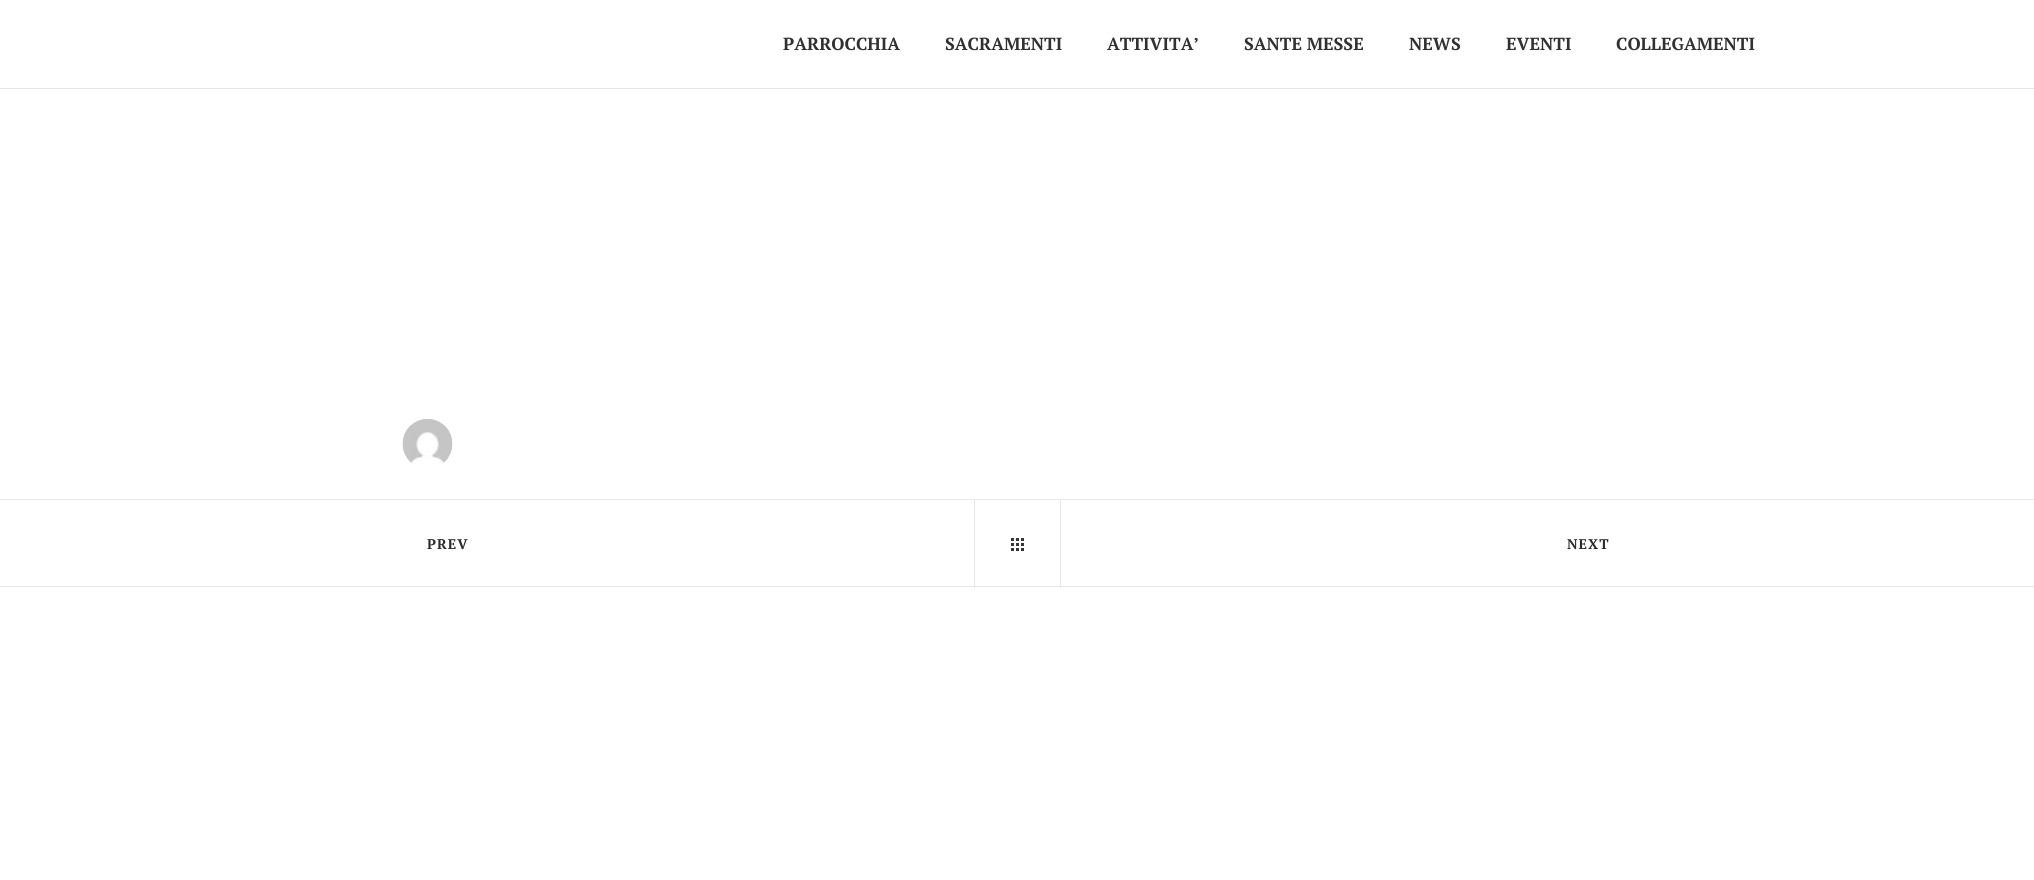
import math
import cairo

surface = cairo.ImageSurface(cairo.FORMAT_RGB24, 2034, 880)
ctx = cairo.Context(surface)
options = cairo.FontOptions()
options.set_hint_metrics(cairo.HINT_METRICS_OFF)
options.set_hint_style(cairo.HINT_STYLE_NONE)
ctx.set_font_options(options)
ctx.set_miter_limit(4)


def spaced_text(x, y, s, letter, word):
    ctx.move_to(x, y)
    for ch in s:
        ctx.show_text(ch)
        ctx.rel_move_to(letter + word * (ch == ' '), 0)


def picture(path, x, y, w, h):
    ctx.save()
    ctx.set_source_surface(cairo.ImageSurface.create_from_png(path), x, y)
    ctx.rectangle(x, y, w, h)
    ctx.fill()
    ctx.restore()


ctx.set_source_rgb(1, 1, 1)
ctx.paint()
ctx.set_source_rgb(0.906, 0.906, 0.906)
ctx.rectangle(0, 88, 2034, 1)
ctx.fill()
ctx.select_font_face("PT Serif", cairo.FONT_SLANT_NORMAL, cairo.FONT_WEIGHT_BOLD)
ctx.set_font_size(17.5)
ctx.set_source_rgb(0.192, 0.192, 0.192)
ctx.move_to(783, 50)
ctx.show_text("PARROCCHIA")
ctx.move_to(945, 50)
ctx.show_text("SACRAMENTI")
ctx.move_to(1107, 50)
ctx.show_text("ATTIVITA’")
ctx.move_to(1244, 50)
ctx.show_text("SANTE MESSE")
ctx.move_to(1409, 50)
ctx.show_text("NEWS")
ctx.move_to(1506, 50)
ctx.show_text("EVENTI")
ctx.move_to(1616, 50)
ctx.show_text("COLLEGAMENTI")
picture("img1.png", 402, 419, 51, 45)
ctx.set_source_rgb(0.91, 0.91, 0.91)
ctx.rectangle(0, 499, 2034, 1)
ctx.fill()
ctx.set_font_size(14)
ctx.set_source_rgb(0.173, 0.169, 0.169)
spaced_text(427, 549, "PREV", 1, 0)
ctx.set_source_rgb(0.906, 0.906, 0.906)
ctx.rectangle(0, 586, 2034, 1)
ctx.fill()
ctx.rectangle(1060, 500, 1, 88)
ctx.fill()
ctx.rectangle(974, 500, 1, 88)
ctx.fill()
ctx.set_source_rgb(0.212, 0.212, 0.212)
ctx.rectangle(1011, 548, 3, 3)
ctx.fill()
ctx.rectangle(1011, 538, 3, 3)
ctx.fill()
ctx.rectangle(1011, 543, 3, 3)
ctx.fill()
ctx.rectangle(1016, 548, 3, 3)
ctx.fill()
ctx.rectangle(1016, 538, 3, 3)
ctx.fill()
ctx.rectangle(1016, 543, 3, 3)
ctx.fill()
ctx.rectangle(1021, 548, 3, 3)
ctx.fill()
ctx.rectangle(1021, 538, 3, 3)
ctx.fill()
ctx.rectangle(1021, 543, 3, 3)
ctx.fill()
ctx.set_source_rgb(0.173, 0.169, 0.169)
spaced_text(1567, 549, "NEXT", 1, 0)
surface.write_to_png("page.png")
